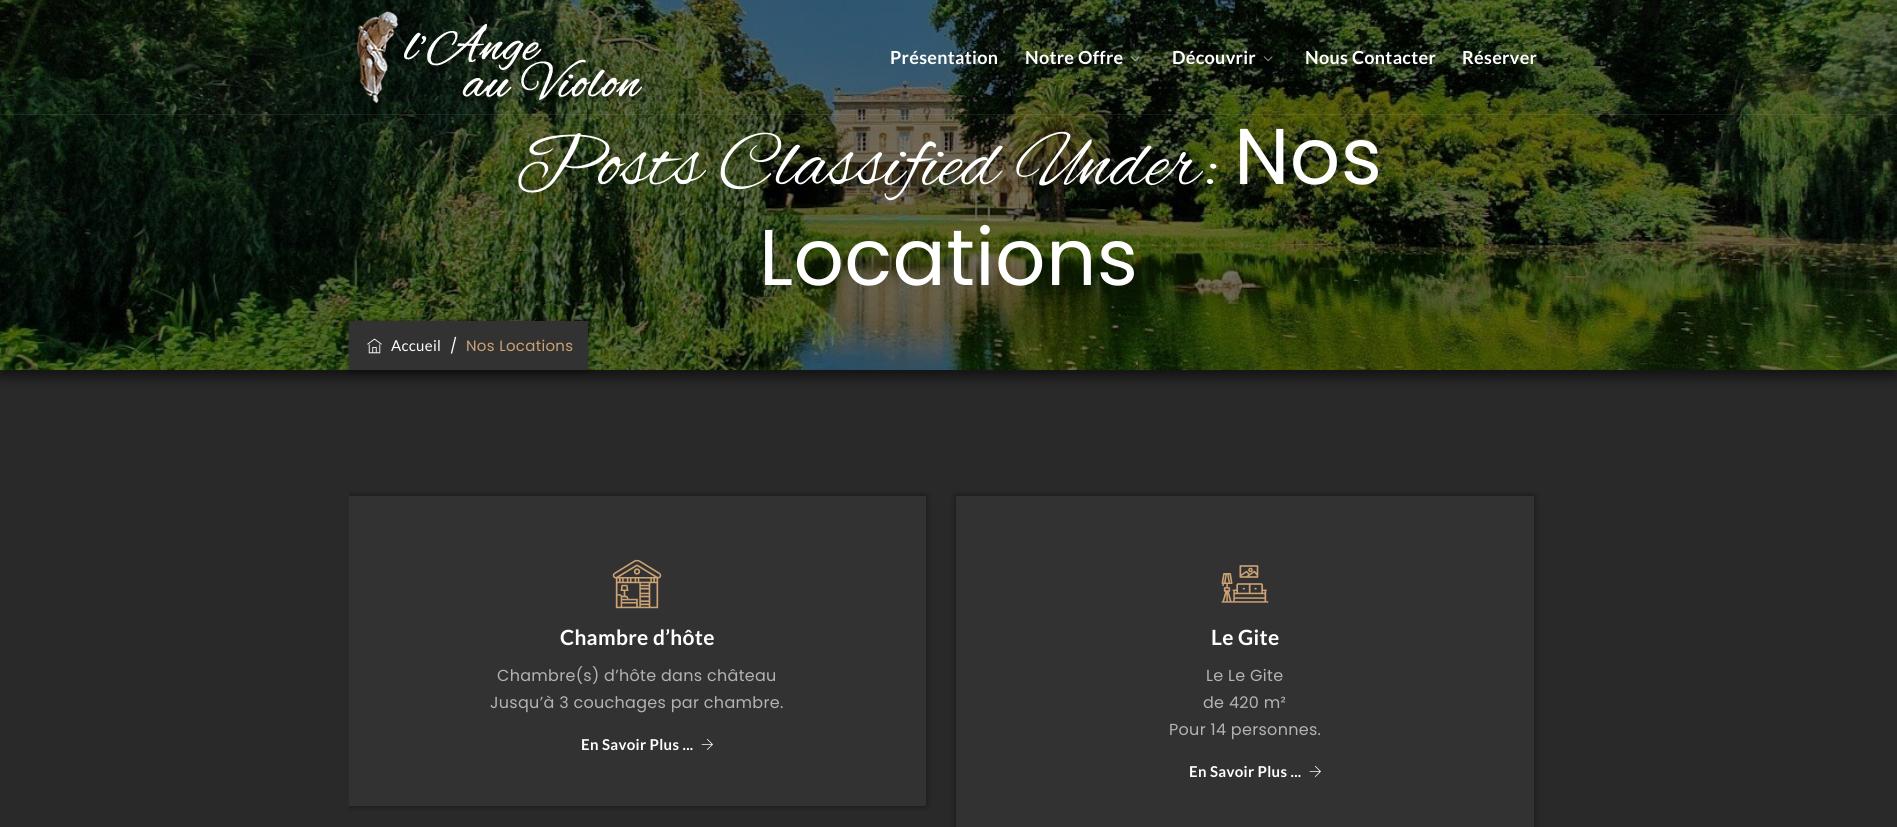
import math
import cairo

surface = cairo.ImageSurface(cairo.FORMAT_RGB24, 1897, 827)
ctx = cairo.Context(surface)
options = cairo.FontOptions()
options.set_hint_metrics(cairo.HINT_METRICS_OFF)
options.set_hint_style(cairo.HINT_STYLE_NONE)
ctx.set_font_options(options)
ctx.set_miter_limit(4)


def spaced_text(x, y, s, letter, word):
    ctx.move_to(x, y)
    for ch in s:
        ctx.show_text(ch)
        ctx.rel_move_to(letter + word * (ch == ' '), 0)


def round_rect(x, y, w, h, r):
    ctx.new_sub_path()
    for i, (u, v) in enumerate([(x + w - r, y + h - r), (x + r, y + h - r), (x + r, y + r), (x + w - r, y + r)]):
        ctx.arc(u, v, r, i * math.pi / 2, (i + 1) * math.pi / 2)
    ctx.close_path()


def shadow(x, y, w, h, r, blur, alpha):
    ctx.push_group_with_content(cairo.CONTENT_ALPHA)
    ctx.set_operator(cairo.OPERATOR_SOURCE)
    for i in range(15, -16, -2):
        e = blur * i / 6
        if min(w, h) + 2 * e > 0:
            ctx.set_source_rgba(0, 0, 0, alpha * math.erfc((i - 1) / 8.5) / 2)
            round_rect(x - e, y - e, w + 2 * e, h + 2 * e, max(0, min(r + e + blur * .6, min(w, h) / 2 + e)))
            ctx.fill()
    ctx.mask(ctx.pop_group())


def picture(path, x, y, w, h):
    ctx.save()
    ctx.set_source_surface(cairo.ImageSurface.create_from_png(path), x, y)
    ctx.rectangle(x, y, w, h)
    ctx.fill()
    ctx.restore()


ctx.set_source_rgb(0.161, 0.161, 0.161)
ctx.paint()
ctx.set_source_rgb(0, 0, 0)
shadow(0, 8, 1897, 370, 0, 5, 0.5)
picture("img4.png", 0, 0, 1897, 370)
picture("img1.png", 356, 11, 291, 94)
ctx.select_font_face("Lato", cairo.FONT_SLANT_NORMAL, cairo.FONT_WEIGHT_BOLD)
ctx.set_font_size(18)
ctx.set_source_rgb(1, 1, 1)
spaced_text(890, 64, "Présentation", 0.3, 0)
spaced_text(1025, 64, "Notre Offre", 0.3, 0)
picture("img2.png", 1130, 56, 10, 6)
spaced_text(1172, 64, "Découvrir", 0.3, 0)
picture("img3.png", 1263, 56, 10, 6)
spaced_text(1305, 64, "Nous Contacter", 0.3, 0)
spaced_text(1462, 64, "Réserver", 0.3, 0)
ctx.set_source_rgba(1, 1, 1, 0.08)
ctx.rectangle(0, 114, 1897, 1)
ctx.fill()
ctx.select_font_face("Alex Brush")
ctx.set_font_size(79)
ctx.set_source_rgb(1, 1, 1)
spaced_text(515, 184, "Posts Classified Under:", 0.3, 0)
ctx.select_font_face("Poppins")
spaced_text(1234, 184, "Nos", 0.3, 0)
spaced_text(759, 285, "Locations", 0.3, 0)
ctx.set_source_rgb(0, 0, 0)
shadow(349, 321, 239, 49, 0, 3.5, 0.5)
ctx.set_source_rgb(0.196, 0.196, 0.196)
ctx.rectangle(349, 321, 239, 49)
ctx.fill()
picture("img5.png", 367, 338, 15, 16)
ctx.select_font_face("Lato")
ctx.set_font_size(15)
ctx.set_source_rgb(1, 1, 1)
spaced_text(391, 351, "Accueil", 0.3, 0)
ctx.select_font_face("Poppins")
spaced_text(450, 351, "/", 0.3, 0)
ctx.set_source_rgb(0.804, 0.635, 0.455)
spaced_text(466, 351, "Nos Locations", 0.3, 0)
ctx.save()
ctx.rectangle(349, 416, 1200, 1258)
ctx.clip()
ctx.set_source_rgb(0, 0, 0)
shadow(349, 496, 577, 310, 0, 3.5, 0.5)
ctx.restore()
ctx.set_source_rgb(0.196, 0.196, 0.196)
ctx.rectangle(349, 496, 577, 310)
ctx.fill()
picture("img6.png", 612, 559, 50, 50)
ctx.select_font_face("Lato", cairo.FONT_SLANT_NORMAL, cairo.FONT_WEIGHT_BOLD)
ctx.set_font_size(21)
ctx.set_source_rgb(1, 1, 1)
spaced_text(560, 645, "Chambre d’hôte", 0.3, 0)
ctx.select_font_face("Poppins")
ctx.set_font_size(16)
ctx.set_source_rgb(0.702, 0.702, 0.702)
spaced_text(497, 681, "Chambre(s) d’hôte dans château", 0.3, 0)
spaced_text(490, 708, "Jusqu’à 3 couchages par chambre.", 0.3, 0)
ctx.select_font_face("Lato", cairo.FONT_SLANT_NORMAL, cairo.FONT_WEIGHT_BOLD)
ctx.set_font_size(15)
ctx.set_source_rgb(1, 1, 1)
spaced_text(581, 750, "En Savoir Plus ...", 0.3, 0)
picture("img7.png", 701, 738, 12, 12)
ctx.set_source_rgb(0, 0, 0)
shadow(956, 496, 578, 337, 0, 3.5, 0.5)
ctx.set_source_rgb(0.196, 0.196, 0.196)
ctx.rectangle(956, 496, 578, 331)
ctx.fill()
picture("img8.png", 1221, 565, 48, 38)
ctx.set_font_size(21)
ctx.set_source_rgb(1, 1, 1)
spaced_text(1211, 645, "Le Gite", 0.3, 0)
ctx.select_font_face("Poppins")
ctx.set_font_size(16)
ctx.set_source_rgb(0.702, 0.702, 0.702)
spaced_text(1206, 681, "Le Le Gite", 0.3, 0)
spaced_text(1203, 708, "de 420 m²", 0.3, 0)
spaced_text(1169, 735, "Pour 14 personnes.", 0.3, 0)
ctx.select_font_face("Lato", cairo.FONT_SLANT_NORMAL, cairo.FONT_WEIGHT_BOLD)
ctx.set_font_size(15)
ctx.set_source_rgb(1, 1, 1)
spaced_text(1189, 777, "En Savoir Plus ...", 0.3, 0)
picture("img7.png", 1309, 765, 12, 12)
surface.write_to_png("page.png")
